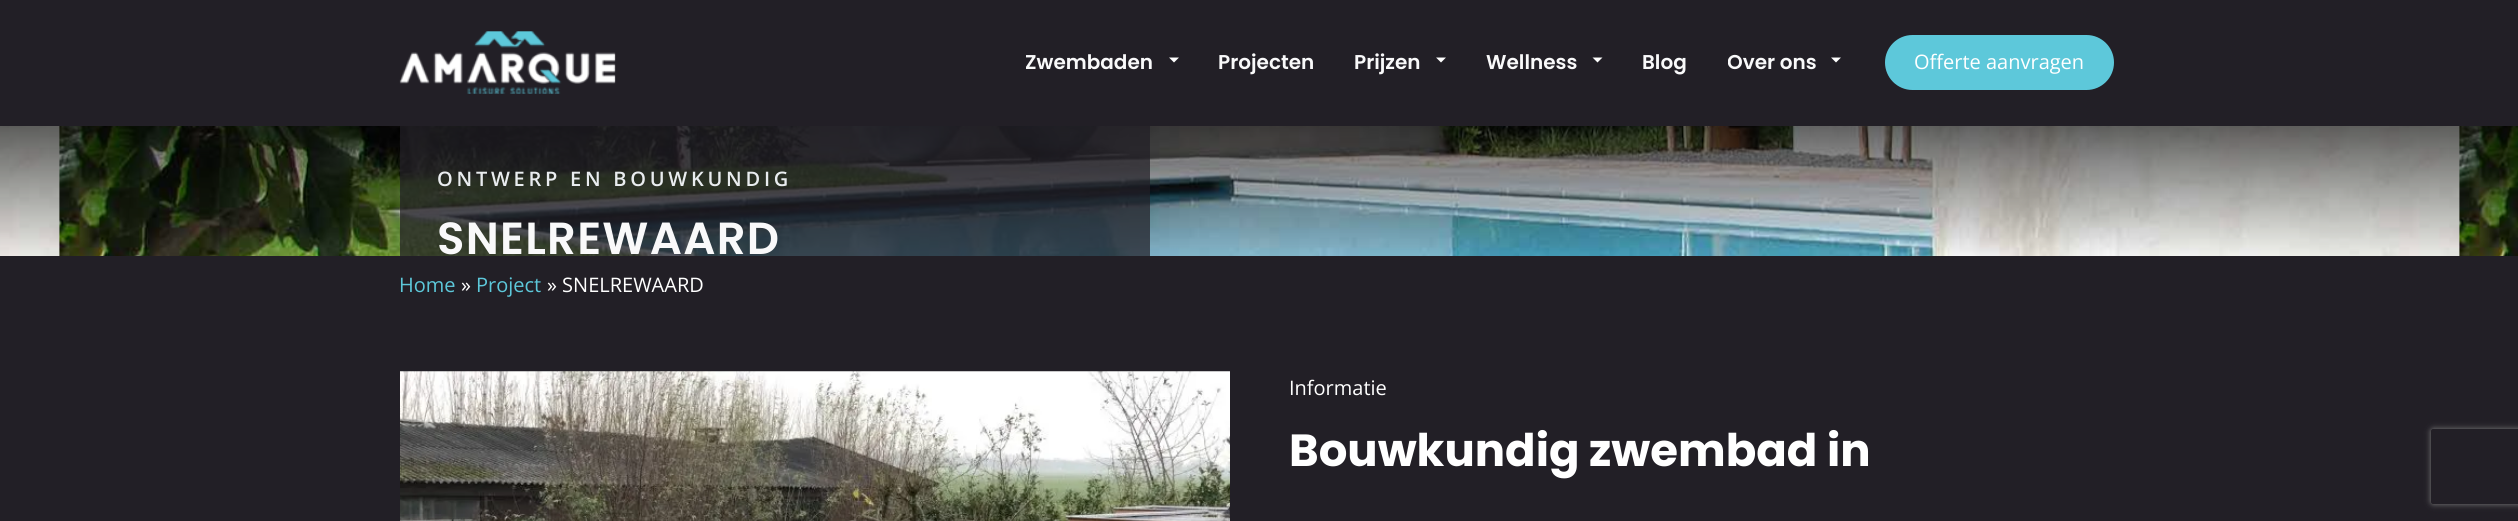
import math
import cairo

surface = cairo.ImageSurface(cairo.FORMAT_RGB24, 2518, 521)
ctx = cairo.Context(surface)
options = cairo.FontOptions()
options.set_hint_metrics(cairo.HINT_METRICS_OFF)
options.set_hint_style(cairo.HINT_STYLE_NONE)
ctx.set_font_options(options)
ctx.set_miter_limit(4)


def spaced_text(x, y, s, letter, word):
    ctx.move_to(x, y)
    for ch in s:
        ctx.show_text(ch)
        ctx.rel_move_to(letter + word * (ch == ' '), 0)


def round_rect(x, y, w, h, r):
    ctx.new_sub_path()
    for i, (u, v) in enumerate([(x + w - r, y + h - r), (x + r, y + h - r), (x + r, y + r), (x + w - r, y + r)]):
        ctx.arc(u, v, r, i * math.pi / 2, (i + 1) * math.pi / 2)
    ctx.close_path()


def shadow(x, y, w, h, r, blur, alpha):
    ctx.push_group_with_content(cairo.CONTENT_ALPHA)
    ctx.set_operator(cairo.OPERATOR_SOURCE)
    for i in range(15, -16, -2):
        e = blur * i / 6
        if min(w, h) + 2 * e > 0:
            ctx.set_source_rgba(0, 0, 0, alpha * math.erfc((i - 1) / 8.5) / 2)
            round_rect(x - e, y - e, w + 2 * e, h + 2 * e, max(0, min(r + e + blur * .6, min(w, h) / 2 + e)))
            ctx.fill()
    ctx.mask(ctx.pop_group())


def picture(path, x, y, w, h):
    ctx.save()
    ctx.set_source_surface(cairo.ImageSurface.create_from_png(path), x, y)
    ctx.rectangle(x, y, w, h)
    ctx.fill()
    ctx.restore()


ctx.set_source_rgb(0.133, 0.122, 0.149)
ctx.paint()
picture("img1.png", 399, 31, 217, 63)
ctx.select_font_face("Poppins SemiBold")
ctx.set_font_size(20)
ctx.set_source_rgb(0.973, 0.976, 0.98)
ctx.move_to(1025, 69)
ctx.show_text("Zwembaden")
ctx.set_source_rgb(1, 1, 1)
ctx.new_path()
ctx.move_to(1169, 57.5)
ctx.line_to(1179, 57.5)
ctx.line_to(1174, 62.5)
ctx.close_path()
ctx.fill()
ctx.set_source_rgb(0.973, 0.976, 0.98)
ctx.move_to(1218, 69)
ctx.show_text("Projecten")
ctx.move_to(1354, 69)
ctx.show_text("Prijzen")
ctx.set_source_rgb(1, 1, 1)
ctx.new_path()
ctx.move_to(1436, 57.5)
ctx.line_to(1446, 57.5)
ctx.line_to(1441, 62.5)
ctx.close_path()
ctx.fill()
ctx.set_source_rgb(0.973, 0.976, 0.98)
ctx.move_to(1486, 69)
ctx.show_text("Wellness")
ctx.set_source_rgb(1, 1, 1)
ctx.new_path()
ctx.move_to(1592.5, 57.5)
ctx.line_to(1602.5, 57.5)
ctx.line_to(1597.5, 62.5)
ctx.close_path()
ctx.fill()
ctx.set_source_rgb(0.973, 0.976, 0.98)
ctx.move_to(1642, 69)
ctx.show_text("Blog")
ctx.save()
ctx.rectangle(1728, 49, 88, 27)
ctx.clip()
ctx.move_to(1727, 69)
ctx.show_text("Over ons")
ctx.restore()
ctx.set_source_rgb(1, 1, 1)
ctx.new_path()
ctx.move_to(1831, 57.5)
ctx.line_to(1841, 57.5)
ctx.line_to(1836, 62.5)
ctx.close_path()
ctx.fill()
ctx.set_source_rgb(0.365, 0.784, 0.855)
round_rect(1885, 35, 229, 55, 27.5)
ctx.fill()
ctx.select_font_face("Open Sans")
ctx.set_source_rgb(1, 1, 1)
ctx.move_to(1914, 69)
ctx.show_text("Offerte aanvragen")
picture("img2.png", 0, 126, 2518, 130)
ctx.set_source_rgba(0.133, 0.122, 0.149, 0.72)
ctx.rectangle(400, 126, 750, 130)
ctx.fill()
ctx.select_font_face("Open Sans SemiBold")
ctx.set_source_rgb(0.914, 0.925, 0.937)
spaced_text(437, 186, "ONTWERP EN BOUWKUNDIG", 3.75, 0)
ctx.select_font_face("Poppins SemiBold")
ctx.set_font_size(45)
ctx.set_source_rgb(0.973, 0.976, 0.98)
spaced_text(437, 254, "SNELREWAARD", 1.25, 0)
ctx.select_font_face("Open Sans")
ctx.set_font_size(20)
ctx.set_source_rgb(0.365, 0.784, 0.855)
ctx.move_to(399, 292)
ctx.show_text("Home")
ctx.set_source_rgb(1, 1, 1)
ctx.move_to(461, 292)
ctx.show_text("»")
ctx.set_source_rgb(0.365, 0.784, 0.855)
ctx.move_to(476, 292)
ctx.show_text("Project")
ctx.set_source_rgb(1, 1, 1)
ctx.move_to(547, 292)
ctx.show_text("» SNELREWAARD")
picture("img3.png", 400, 371, 830, 150)
ctx.move_to(1289, 395)
ctx.show_text("Informatie")
ctx.select_font_face("Poppins", cairo.FONT_SLANT_NORMAL, cairo.FONT_WEIGHT_BOLD)
ctx.set_font_size(45)
ctx.move_to(1289, 466)
ctx.show_text("Bouwkundig zwembad in")
ctx.save()
ctx.set_fill_rule(cairo.FILL_RULE_EVEN_ODD)
ctx.new_path()
ctx.move_to(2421, 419)
ctx.line_to(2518, 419)
ctx.line_to(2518, 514)
ctx.line_to(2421, 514)
ctx.close_path()
ctx.move_to(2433.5, 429)
ctx.line_to(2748.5, 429)
ctx.curve_to(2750, 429, 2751, 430, 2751, 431.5)
ctx.line_to(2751, 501.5)
ctx.curve_to(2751, 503, 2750, 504, 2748.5, 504)
ctx.line_to(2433.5, 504)
ctx.curve_to(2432, 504, 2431, 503, 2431, 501.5)
ctx.line_to(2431, 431.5)
ctx.curve_to(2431, 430, 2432, 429, 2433.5, 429)
ctx.close_path()
ctx.clip()
ctx.set_source_rgb(0.502, 0.502, 0.502)
shadow(2431, 429, 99, 75, 2.5, 3, 1)
ctx.restore()
surface.write_to_png("page.png")
